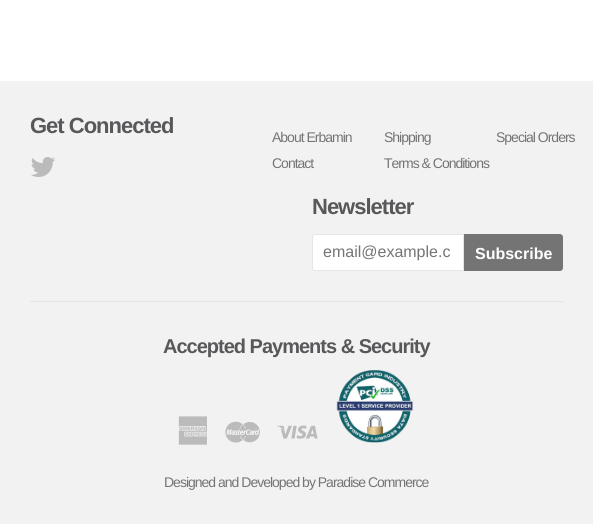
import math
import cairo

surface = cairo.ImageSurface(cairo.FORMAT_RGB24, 593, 524)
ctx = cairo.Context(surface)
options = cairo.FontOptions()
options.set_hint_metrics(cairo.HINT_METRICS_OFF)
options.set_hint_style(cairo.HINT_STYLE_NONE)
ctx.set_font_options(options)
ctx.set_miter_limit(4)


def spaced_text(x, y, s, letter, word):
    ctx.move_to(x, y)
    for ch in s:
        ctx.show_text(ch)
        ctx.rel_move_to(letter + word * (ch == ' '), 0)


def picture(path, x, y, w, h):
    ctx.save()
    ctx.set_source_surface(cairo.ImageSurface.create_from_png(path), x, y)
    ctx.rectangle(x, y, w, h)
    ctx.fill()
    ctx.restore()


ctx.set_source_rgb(1, 1, 1)
ctx.paint()
ctx.set_source_rgb(0.949, 0.949, 0.949)
ctx.rectangle(0, 81, 593, 443)
ctx.fill()
ctx.select_font_face("Liberation Sans", cairo.FONT_SLANT_NORMAL, cairo.FONT_WEIGHT_BOLD)
ctx.set_font_size(22)
ctx.set_source_rgb(0.345, 0.345, 0.357)
spaced_text(30, 133, "Get Connected", -1, 0)
picture("img1.png", 31, 157, 24, 20)
ctx.select_font_face("Liberation Sans")
ctx.set_font_size(14)
ctx.set_source_rgb(0.455, 0.455, 0.455)
spaced_text(272, 142, "About Erbamin", -1, 0)
spaced_text(384, 142, "Shipping", -1, 0)
spaced_text(496, 142, "Special Orders", -1, 0)
spaced_text(272, 168, "Contact", -1, 0)
spaced_text(384, 168, "Terms & Conditions", -1, 0)
ctx.select_font_face("Liberation Sans", cairo.FONT_SLANT_NORMAL, cairo.FONT_WEIGHT_BOLD)
ctx.set_font_size(22)
ctx.set_source_rgb(0.345, 0.345, 0.357)
spaced_text(312, 214, "Newsletter", -1, 0)
ctx.set_source_rgb(1, 1, 1)
ctx.new_path()
ctx.move_to(315, 234.5)
ctx.line_to(463.5, 234.5)
ctx.line_to(463.5, 270.5)
ctx.line_to(315, 270.5)
ctx.curve_to(313.5, 270.5, 312.5, 269.5, 312.5, 268)
ctx.line_to(312.5, 237)
ctx.curve_to(312.5, 235.5, 313.5, 234.5, 315, 234.5)
ctx.close_path()
ctx.fill_preserve()
ctx.set_source_rgb(0.898, 0.898, 0.898)
ctx.set_line_width(1)
ctx.stroke()
ctx.select_font_face("Liberation Sans")
ctx.set_font_size(16)
ctx.set_source_rgb(0.455, 0.455, 0.455)
ctx.move_to(323, 257)
ctx.show_text("email@example.c")
ctx.new_path()
ctx.move_to(464, 234)
ctx.line_to(560, 234)
ctx.curve_to(561.5, 234, 563, 235.5, 563, 237)
ctx.line_to(563, 268)
ctx.curve_to(563, 269.5, 561.5, 271, 560, 271)
ctx.line_to(464, 271)
ctx.close_path()
ctx.fill()
ctx.select_font_face("Liberation Sans", cairo.FONT_SLANT_NORMAL, cairo.FONT_WEIGHT_BOLD)
ctx.set_source_rgb(1, 1, 1)
ctx.move_to(475, 259)
ctx.show_text("Subscribe")
ctx.set_source_rgb(0.898, 0.898, 0.898)
ctx.rectangle(30, 301, 533, 1)
ctx.fill()
ctx.set_font_size(20)
ctx.set_source_rgb(0.345, 0.345, 0.357)
spaced_text(163, 353, "Accepted Payments & Security", -1, 0)
picture("img2.png", 178, 416, 30, 29)
picture("img3.png", 225, 421, 35, 22)
picture("img4.png", 277, 425, 41, 14)
picture("img5.png", 336, 370, 77, 73)
ctx.select_font_face("Liberation Sans")
ctx.set_font_size(14)
ctx.set_source_rgb(0.455, 0.455, 0.455)
spaced_text(164, 487, "Designed and Developed by Paradise Commerce", -1, 0)
surface.write_to_png("page.png")
